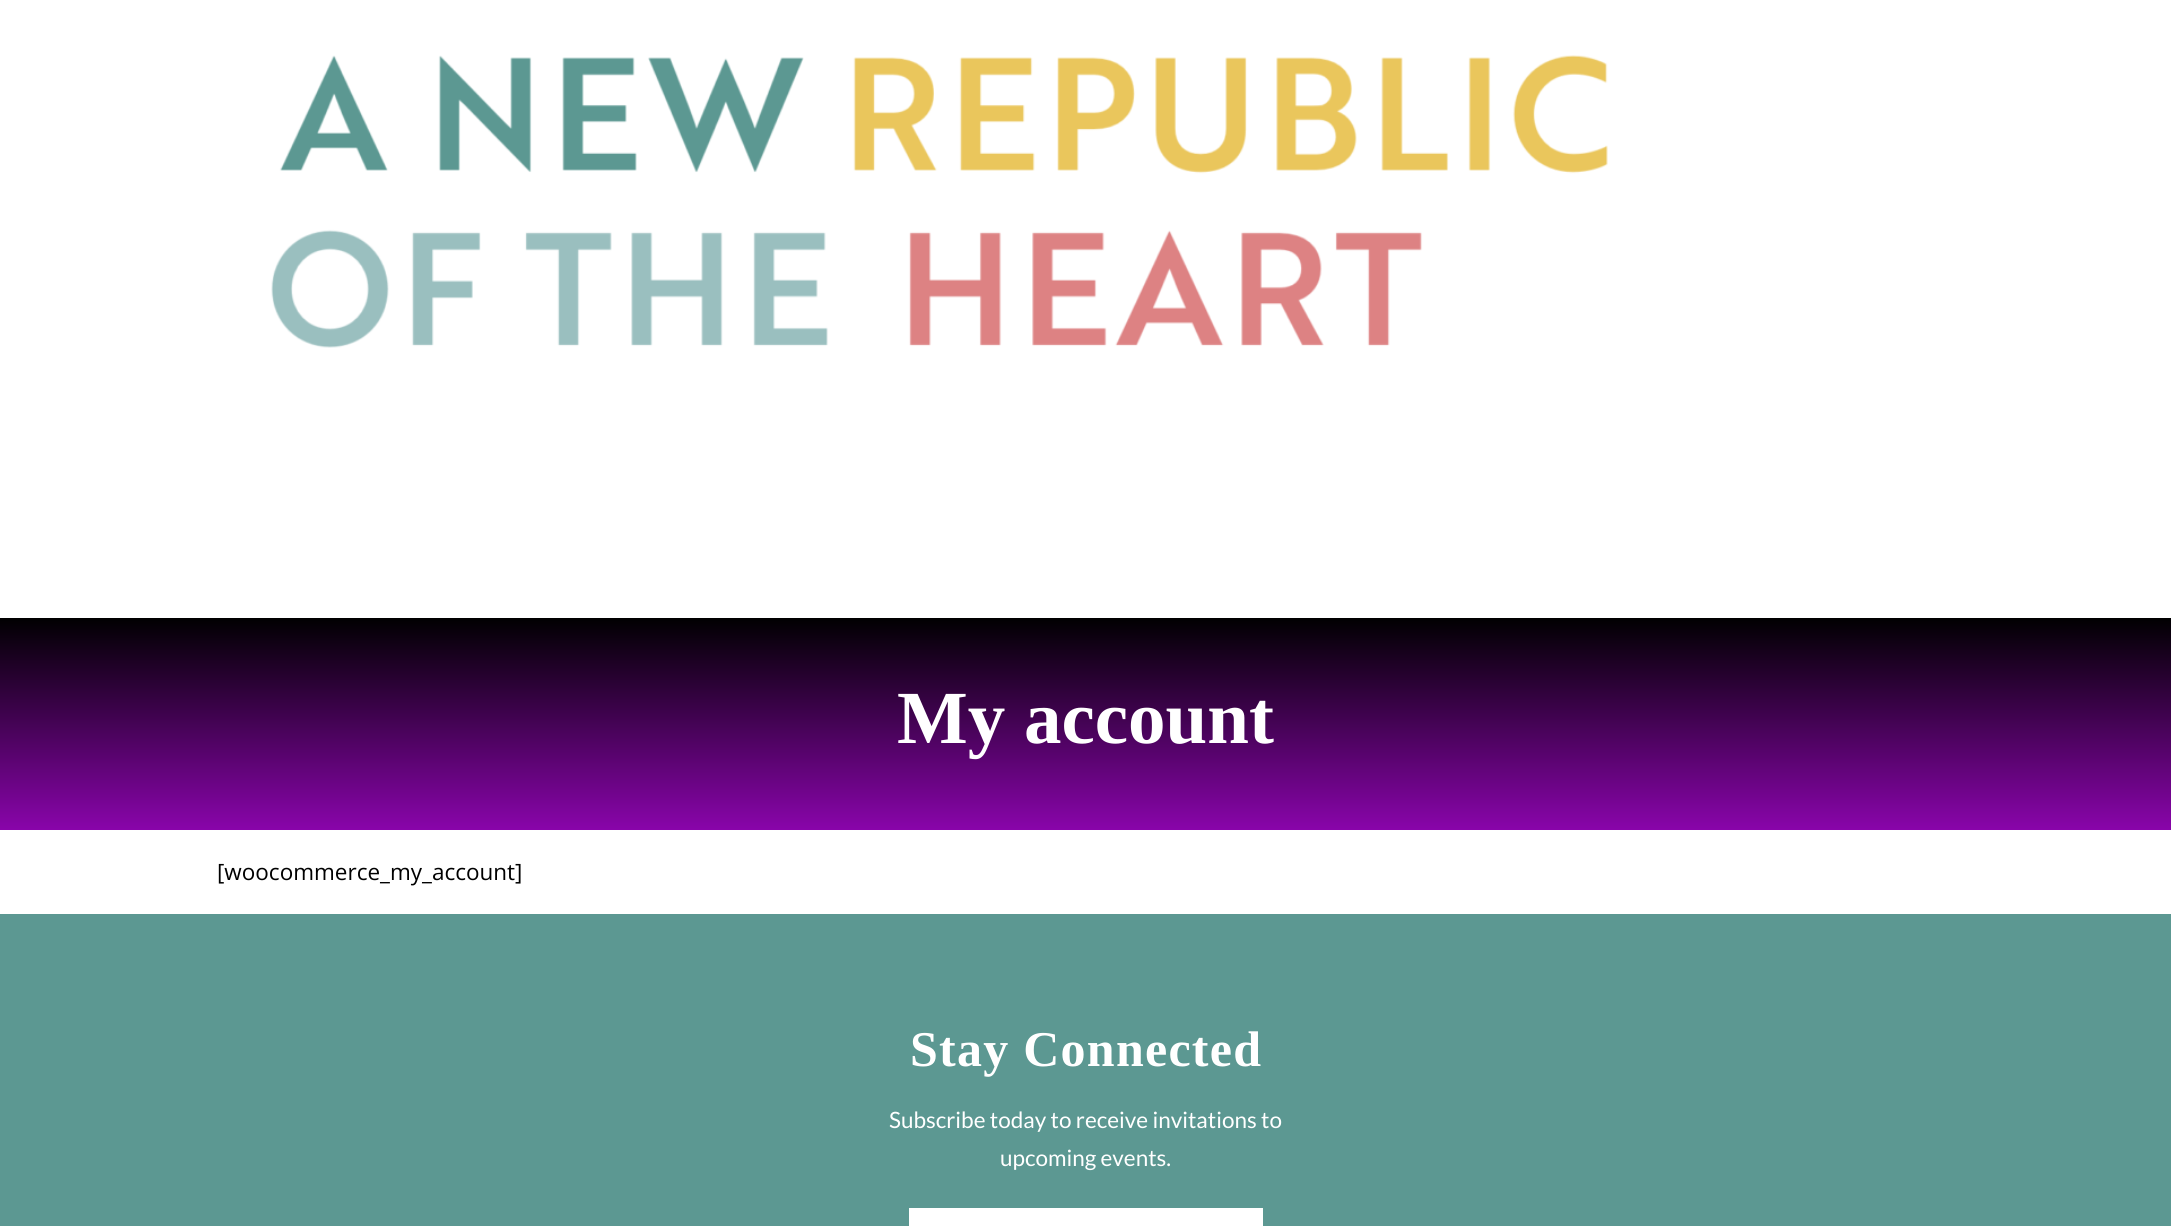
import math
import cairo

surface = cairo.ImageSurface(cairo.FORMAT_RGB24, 2171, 1226)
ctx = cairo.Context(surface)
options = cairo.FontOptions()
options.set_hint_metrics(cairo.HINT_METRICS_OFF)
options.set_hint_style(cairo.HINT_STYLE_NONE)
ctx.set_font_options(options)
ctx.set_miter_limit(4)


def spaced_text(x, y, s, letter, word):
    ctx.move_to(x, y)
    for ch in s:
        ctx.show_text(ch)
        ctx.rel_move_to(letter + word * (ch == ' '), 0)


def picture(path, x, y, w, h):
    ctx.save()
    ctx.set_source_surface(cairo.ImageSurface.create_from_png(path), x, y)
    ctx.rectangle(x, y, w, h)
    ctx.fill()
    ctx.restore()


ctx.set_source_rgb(1, 1, 1)
ctx.paint()
picture("img1.png", 271, 55, 1337, 293)
gradient = cairo.LinearGradient(1086, 617, 1086, 830)
gradient.add_color_stop_rgba(0, 0, 0, 0, 1)
gradient.add_color_stop_rgba(1, 0.537, 0.02, 0.667, 1)
ctx.set_source(gradient)
ctx.rectangle(0, 618, 2171, 212)
ctx.fill()
ctx.select_font_face("Liberation Serif", cairo.FONT_SLANT_NORMAL, cairo.FONT_WEIGHT_BOLD)
ctx.set_font_size(75)
ctx.set_source_rgb(1, 1, 1)
ctx.move_to(897, 743)
ctx.show_text("My account")
ctx.select_font_face("Open Sans")
ctx.set_font_size(22.5)
ctx.set_source_rgb(0, 0, 0)
ctx.move_to(217, 880)
ctx.show_text("[woocommerce_my_account]")
ctx.set_source_rgb(0.361, 0.596, 0.573)
ctx.rectangle(0, 914, 2171, 312)
ctx.fill()
ctx.select_font_face("Liberation Serif", cairo.FONT_SLANT_NORMAL, cairo.FONT_WEIGHT_BOLD)
ctx.set_font_size(50)
ctx.set_source_rgb(1, 1, 1)
spaced_text(910, 1066, "Stay Connected", 1.25, 0)
ctx.select_font_face("Lato")
ctx.set_font_size(22.5)
ctx.move_to(889, 1128)
ctx.show_text("Subscribe today to receive invitations to")
ctx.move_to(1000, 1166)
ctx.show_text("upcoming events.")
ctx.rectangle(909, 1208, 354, 18)
ctx.fill()
surface.write_to_png("page.png")
